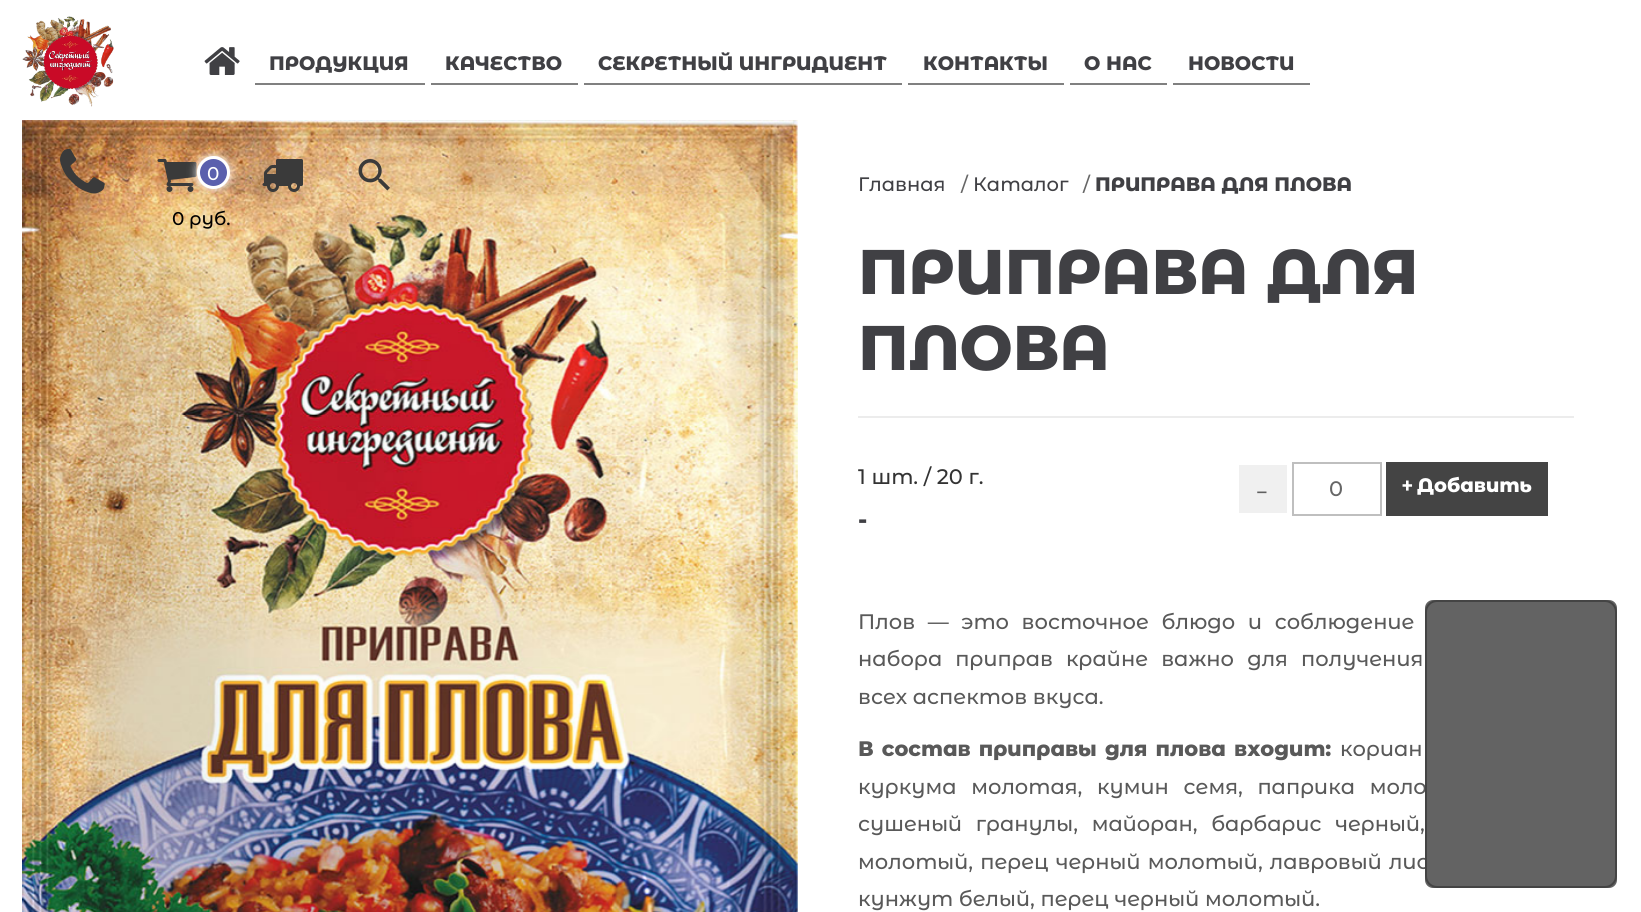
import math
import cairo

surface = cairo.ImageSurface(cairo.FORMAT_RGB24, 1641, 912)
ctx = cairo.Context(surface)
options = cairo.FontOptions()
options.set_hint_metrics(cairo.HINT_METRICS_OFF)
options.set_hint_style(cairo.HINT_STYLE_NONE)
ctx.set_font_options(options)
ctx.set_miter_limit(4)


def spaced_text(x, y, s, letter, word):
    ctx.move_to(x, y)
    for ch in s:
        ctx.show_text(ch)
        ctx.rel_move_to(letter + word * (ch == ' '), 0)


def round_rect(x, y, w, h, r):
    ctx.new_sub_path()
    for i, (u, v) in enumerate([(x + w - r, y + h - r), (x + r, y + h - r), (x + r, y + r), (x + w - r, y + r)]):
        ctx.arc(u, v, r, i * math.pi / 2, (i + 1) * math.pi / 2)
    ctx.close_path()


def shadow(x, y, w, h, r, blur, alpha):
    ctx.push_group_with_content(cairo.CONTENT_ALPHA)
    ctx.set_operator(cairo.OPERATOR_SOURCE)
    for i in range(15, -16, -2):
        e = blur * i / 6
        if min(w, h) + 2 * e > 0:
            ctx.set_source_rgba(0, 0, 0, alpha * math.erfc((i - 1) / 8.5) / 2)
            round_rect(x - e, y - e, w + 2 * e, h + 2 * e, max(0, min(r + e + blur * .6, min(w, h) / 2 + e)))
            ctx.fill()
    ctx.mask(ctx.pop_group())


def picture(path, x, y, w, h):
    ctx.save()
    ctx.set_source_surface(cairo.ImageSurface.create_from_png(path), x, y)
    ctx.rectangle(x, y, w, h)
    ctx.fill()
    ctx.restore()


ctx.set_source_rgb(1, 1, 1)
ctx.paint()
picture("img1.png", 22, 16, 92, 91)
picture("img2.png", 204, 47, 36, 28)
ctx.set_source_rgb(0.502, 0.502, 0.502)
ctx.rectangle(255, 83, 170, 2)
ctx.fill()
ctx.select_font_face("Montserrat Alternates ExtraBold")
ctx.set_font_size(19.5)
ctx.set_source_rgb(0.251, 0.251, 0.267)
ctx.move_to(269, 70)
ctx.show_text("ПРОДУКЦИЯ")
ctx.set_source_rgb(0.502, 0.502, 0.502)
ctx.rectangle(431, 83, 147, 2)
ctx.fill()
ctx.set_source_rgb(0.251, 0.251, 0.267)
ctx.move_to(445, 70)
ctx.show_text("КАЧЕСТВО")
ctx.set_source_rgb(0.502, 0.502, 0.502)
ctx.rectangle(584, 83, 318, 2)
ctx.fill()
ctx.set_source_rgb(0.251, 0.251, 0.267)
ctx.move_to(598, 70)
ctx.show_text("СЕКРЕТНЫЙ ИНГРИДИЕНТ")
ctx.set_source_rgb(0.502, 0.502, 0.502)
ctx.rectangle(908, 83, 156, 2)
ctx.fill()
ctx.set_source_rgb(0.251, 0.251, 0.267)
ctx.move_to(923, 70)
ctx.show_text("КОНТАКТЫ")
ctx.set_source_rgb(0.502, 0.502, 0.502)
ctx.rectangle(1070, 83, 97, 2)
ctx.fill()
ctx.set_source_rgb(0.251, 0.251, 0.267)
ctx.move_to(1084, 70)
ctx.show_text("О НАС")
ctx.set_source_rgb(0.502, 0.502, 0.502)
ctx.rectangle(1173, 83, 137, 2)
ctx.fill()
ctx.set_source_rgb(0.251, 0.251, 0.267)
ctx.move_to(1188, 70)
ctx.show_text("НОВОСТИ")
picture("img7.png", 22, 120, 776, 792)
picture("img3.png", 60, 148, 45, 46)
picture("img4.png", 157, 159, 40, 33)
ctx.set_source_rgb(1, 1, 1)
shadow(197, 156, 33, 33, 16.5, 4.5, 1)
ctx.set_source_rgb(0.357, 0.376, 0.678)
ctx.arc(213.5, 172.5, 15, 0, 2 * math.pi)
ctx.fill_preserve()
ctx.set_source_rgb(1, 1, 1)
ctx.set_line_width(3)
ctx.stroke()
ctx.select_font_face("Montserrat Alternates Medium")
ctx.set_font_size(18.5)
ctx.move_to(207, 180)
ctx.show_text("0")
ctx.set_source_rgb(0, 0, 0)
ctx.move_to(172, 225)
ctx.show_text("0 руб.")
picture("img5.png", 262, 159, 41, 33)
picture("img6.png", 358, 159, 32, 32)
ctx.set_font_size(19.5)
ctx.set_source_rgb(0.251, 0.251, 0.267)
ctx.move_to(858, 191)
ctx.show_text("Главная")
ctx.set_source_rgb(0.4, 0.4, 0.4)
ctx.move_to(961, 191)
ctx.show_text("/")
ctx.set_source_rgb(0.251, 0.251, 0.267)
ctx.move_to(973, 191)
ctx.show_text("Каталог")
ctx.set_source_rgb(0.4, 0.4, 0.4)
ctx.move_to(1083, 191)
ctx.show_text("/")
ctx.select_font_face("Montserrat Alternates ExtraBold")
ctx.set_source_rgb(0.251, 0.251, 0.267)
ctx.move_to(1095, 191)
ctx.show_text("ПРИПРАВА ДЛЯ ПЛОВА")
ctx.set_font_size(63)
ctx.move_to(858, 294)
ctx.show_text("ПРИПРАВА ДЛЯ")
ctx.move_to(858, 370)
ctx.show_text("ПЛОВА")
ctx.set_source_rgb(0.922, 0.922, 0.922)
ctx.rectangle(858, 416, 716, 2)
ctx.fill()
ctx.select_font_face("Montserrat Alternates Medium")
ctx.set_font_size(21)
ctx.set_source_rgb(0.2, 0.2, 0.2)
ctx.move_to(858, 484)
ctx.show_text("1 шт. / 20 г.")
ctx.select_font_face("Montserrat Alternates ExtraBold")
ctx.set_font_size(24)
ctx.set_source_rgb(0.251, 0.251, 0.267)
ctx.move_to(858, 528)
ctx.show_text("-")
ctx.set_source_rgb(0.941, 0.941, 0.941)
ctx.rectangle(1239, 465, 48, 48)
ctx.fill()
ctx.select_font_face("Montserrat Alternates Light")
ctx.set_font_size(36)
ctx.set_source_rgb(0.376, 0.376, 0.376)
ctx.move_to(1255, 502)
ctx.show_text("-")
ctx.rectangle(1293, 463, 88, 52)
ctx.set_source_rgb(0.749, 0.749, 0.749)
ctx.set_line_width(2)
ctx.stroke()
ctx.select_font_face("Montserrat Alternates Medium")
ctx.set_font_size(21)
ctx.set_source_rgb(0.4, 0.4, 0.4)
ctx.move_to(1329, 496)
ctx.show_text("0")
ctx.set_source_rgb(0.267, 0.267, 0.267)
ctx.rectangle(1386, 462, 162, 54)
ctx.fill()
ctx.select_font_face("Roboto", cairo.FONT_SLANT_NORMAL, cairo.FONT_WEIGHT_BOLD)
ctx.set_font_size(19.5)
ctx.set_source_rgb(1, 1, 1)
ctx.move_to(1402, 492)
ctx.show_text("+")
ctx.select_font_face("Montserrat Alternates ExtraBold")
ctx.move_to(1417, 492)
ctx.show_text("Добавить")
ctx.select_font_face("Montserrat Alternates Medium")
ctx.set_font_size(21)
ctx.set_source_rgb(0.349, 0.349, 0.349)
spaced_text(858, 629, "Плов — это восточное блюдо и соблюдение", 0, 7)
spaced_text(858, 666, "набора приправ крайне важно для получения", 0, 7.5)
ctx.move_to(858, 704)
ctx.show_text("всех аспектов вкуса.")
ctx.select_font_face("Montserrat Alternates ExtraBold")
spaced_text(858, 756, "В состав приправы для плова входит:", 0, 2)
ctx.select_font_face("Montserrat Alternates Medium")
spaced_text(1340, 756, "кориан", 0, 2)
spaced_text(858, 794, "куркума молотая, кумин семя, паприка моло", 0, 9)
spaced_text(858, 831, "сушеный гранулы, майоран, барбарис черный,", 0, 8)
spaced_text(858, 869, "молотый, перец черный молотый, лавровый лис", 0, 1.5)
ctx.move_to(858, 906)
ctx.show_text("кунжут белый, перец черный молотый.")
round_rect(1426, 601, 190, 286, 11)
ctx.set_source_rgb(0.267, 0.267, 0.267)
ctx.stroke()
ctx.set_source_rgb(0.388, 0.388, 0.388)
round_rect(1426.5, 601.5, 189, 285, 6.5)
ctx.fill_preserve()
ctx.set_line_width(3)
ctx.stroke()
round_rect(1426, 601, 190, 286, 11)
ctx.set_source_rgb(0.267, 0.267, 0.267)
ctx.set_line_width(2)
ctx.stroke()
surface.write_to_png("page.png")
